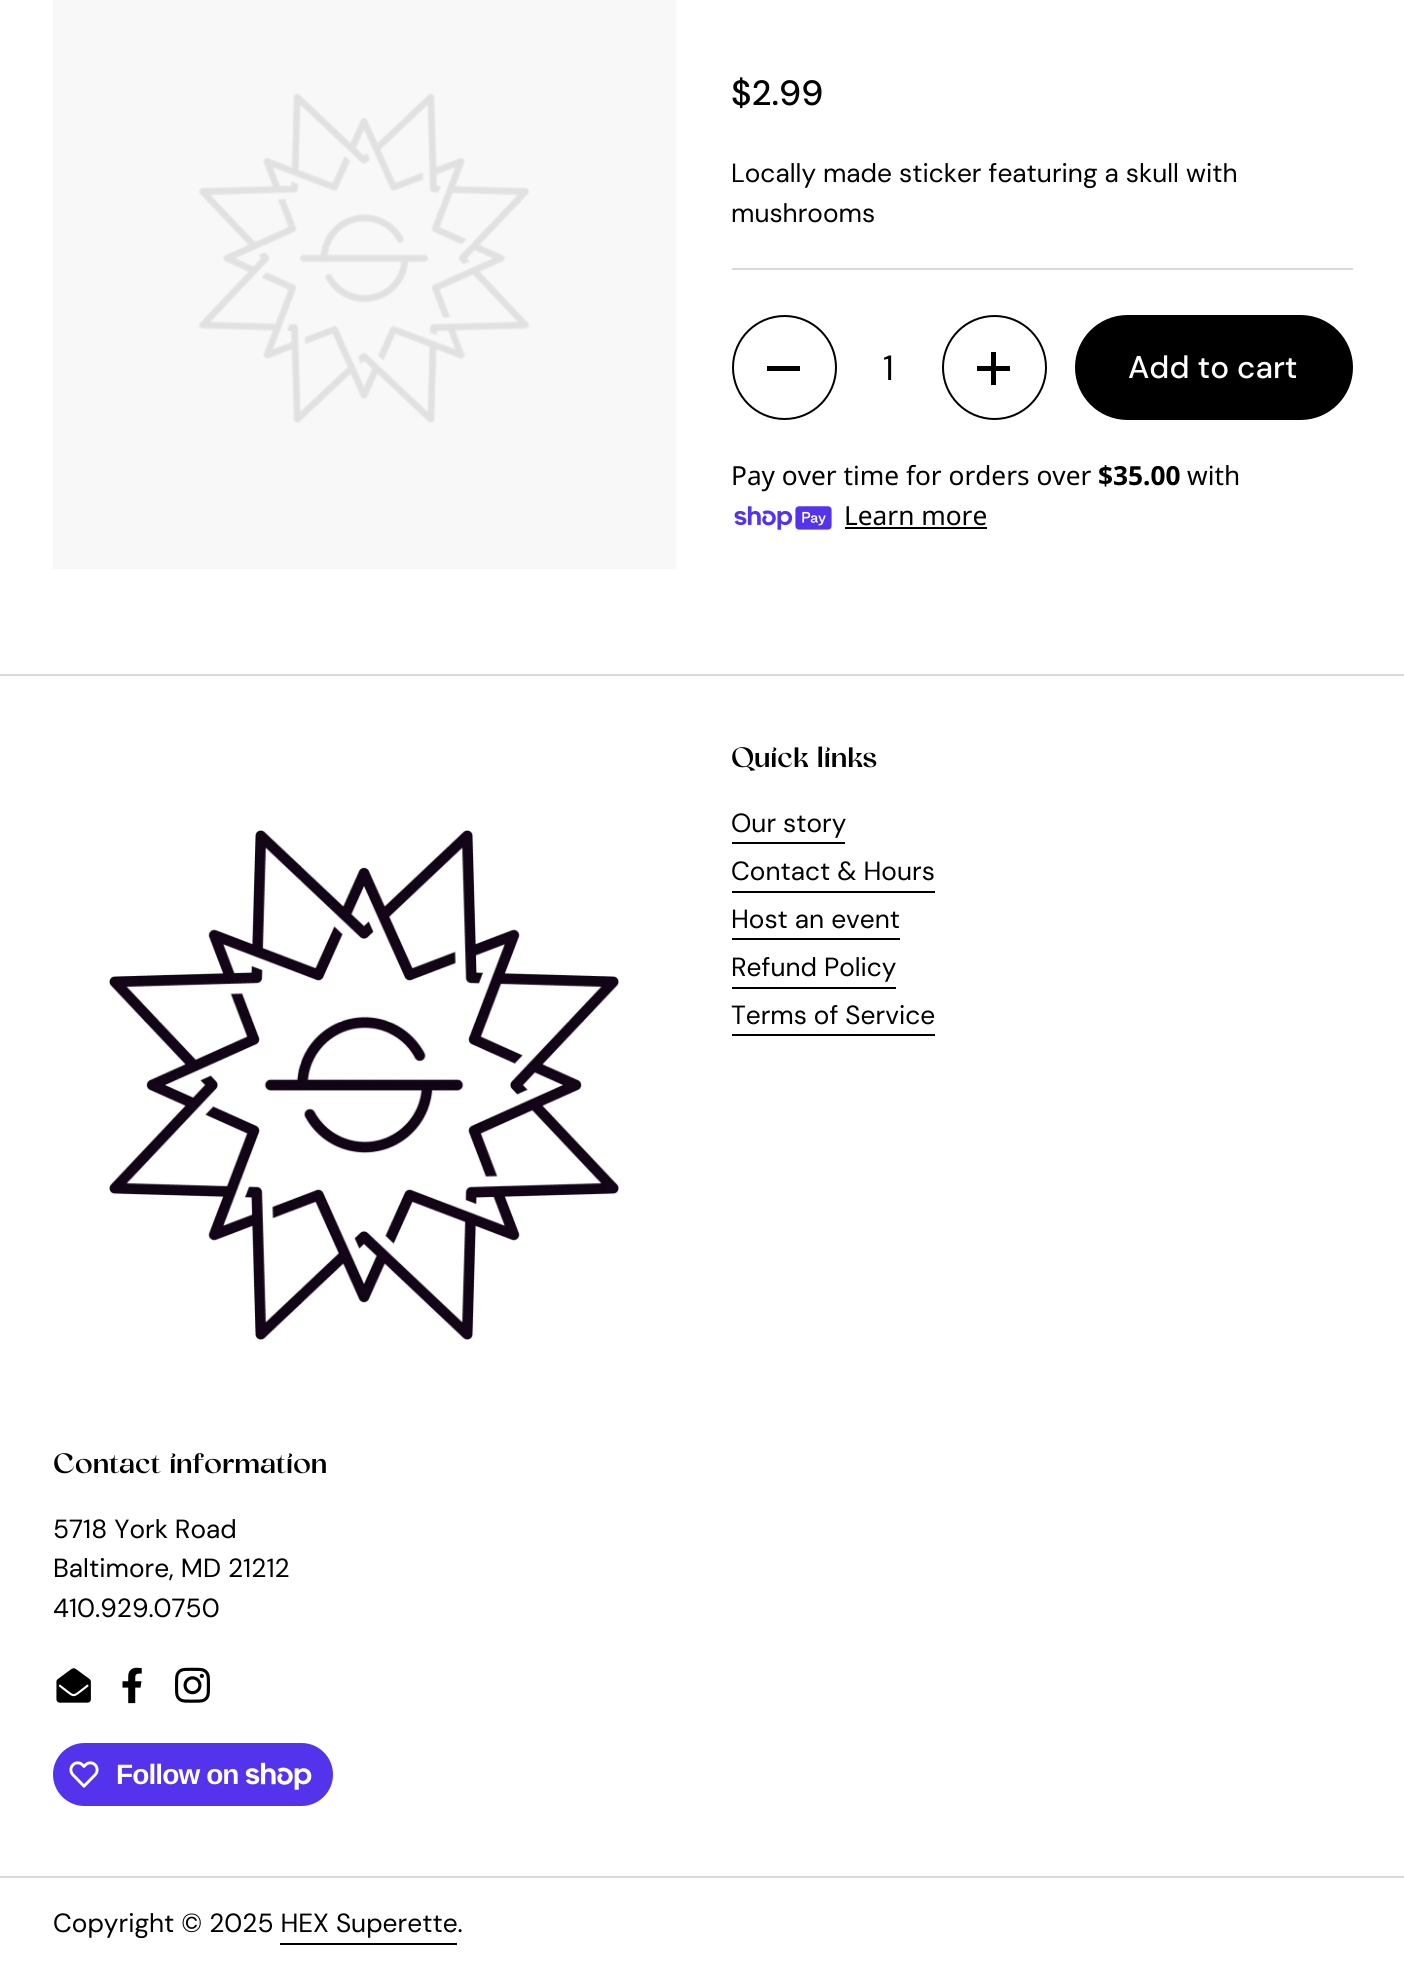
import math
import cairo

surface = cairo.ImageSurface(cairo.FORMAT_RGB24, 1404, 1970)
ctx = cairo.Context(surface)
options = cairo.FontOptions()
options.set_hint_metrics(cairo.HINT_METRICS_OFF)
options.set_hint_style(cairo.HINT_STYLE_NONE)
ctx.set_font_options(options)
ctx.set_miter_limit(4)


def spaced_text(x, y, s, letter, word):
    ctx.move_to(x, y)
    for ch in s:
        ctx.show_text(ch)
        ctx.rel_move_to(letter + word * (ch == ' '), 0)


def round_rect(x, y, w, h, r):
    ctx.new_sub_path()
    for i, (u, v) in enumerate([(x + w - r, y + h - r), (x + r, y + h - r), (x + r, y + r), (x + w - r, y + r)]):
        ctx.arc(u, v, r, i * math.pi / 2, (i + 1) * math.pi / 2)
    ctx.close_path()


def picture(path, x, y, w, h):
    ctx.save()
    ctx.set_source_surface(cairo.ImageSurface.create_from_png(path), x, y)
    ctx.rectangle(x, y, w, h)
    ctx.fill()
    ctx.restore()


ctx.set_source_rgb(1, 1, 1)
ctx.paint()
ctx.set_source_rgb(0.969, 0.969, 0.969)
ctx.rectangle(53, 0, 623, 569)
ctx.fill()
picture("img1.png", 199, 93, 330, 330)
ctx.select_font_face("DM Sans Medium")
ctx.set_font_size(35)
ctx.set_source_rgb(0, 0, 0)
ctx.move_to(731, 105)
ctx.show_text("$2.99")
ctx.select_font_face("DM Sans")
ctx.set_font_size(26.25)
ctx.move_to(731, 182)
ctx.show_text("Locally made sticker featuring a skull with")
ctx.move_to(731, 222)
ctx.show_text("mushrooms")
ctx.set_source_rgb(0.851, 0.851, 0.851)
ctx.rectangle(732, 268, 621, 2)
ctx.fill()
ctx.arc(784.5, 367.5, 51.5, 0, 2 * math.pi)
ctx.set_source_rgb(0, 0, 0)
ctx.stroke()
ctx.rectangle(767, 366, 33, 5)
ctx.fill()
ctx.select_font_face("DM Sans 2")
ctx.set_font_size(35)
ctx.move_to(883, 380)
ctx.show_text("1")
ctx.new_path()
ctx.arc(994.5, 367.5, 51.5, 0, 2 * math.pi)
ctx.stroke()
ctx.rectangle(991, 352, 5, 33)
ctx.fill()
ctx.rectangle(977, 366, 33, 5)
ctx.fill()
round_rect(1076, 316, 276, 103, 51.5)
ctx.fill_preserve()
ctx.stroke()
ctx.select_font_face("DM Sans 2 Medium")
ctx.set_font_size(31.5)
ctx.set_source_rgb(1, 1, 1)
ctx.move_to(1128, 378)
ctx.show_text("Add to cart")
ctx.select_font_face("Noto Sans")
ctx.set_font_size(26.25)
ctx.set_source_rgb(0, 0, 0)
ctx.move_to(731, 485)
ctx.show_text("Pay over time for orders over")
ctx.select_font_face("Noto Sans", cairo.FONT_SLANT_NORMAL, cairo.FONT_WEIGHT_BOLD)
ctx.move_to(1098, 485)
ctx.show_text("$35.00")
ctx.select_font_face("Noto Sans")
ctx.move_to(1187, 485)
ctx.show_text("with")
picture("img2.png", 734, 506, 98, 24)
ctx.move_to(844, 525)
ctx.show_text("Learn more")
ctx.rectangle(845, 527, 142, 2)
ctx.fill()
ctx.set_source_rgb(0.851, 0.851, 0.851)
ctx.rectangle(0, 674, 1404, 2)
ctx.fill()
picture("img3.png", 109, 830, 511, 511)
ctx.select_font_face("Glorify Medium")
ctx.set_font_size(28)
ctx.set_source_rgb(0, 0, 0)
ctx.move_to(731, 767)
ctx.show_text("Quick links")
ctx.select_font_face("DM Sans")
ctx.set_font_size(26.25)
ctx.move_to(731, 832)
ctx.show_text("Our story")
ctx.rectangle(732, 842, 113, 2)
ctx.fill()
ctx.move_to(731, 880)
ctx.show_text("Contact & Hours")
ctx.rectangle(732, 891, 203, 2)
ctx.fill()
ctx.move_to(731, 928)
ctx.show_text("Host an event")
ctx.rectangle(732, 938, 168, 2)
ctx.fill()
ctx.move_to(731, 976)
ctx.show_text("Refund Policy")
ctx.rectangle(732, 987, 164, 2)
ctx.fill()
ctx.move_to(731, 1024)
ctx.show_text("Terms of Service")
ctx.rectangle(732, 1034, 203, 2)
ctx.fill()
ctx.select_font_face("Glorify Medium")
ctx.set_font_size(28)
ctx.move_to(53, 1473)
ctx.show_text("Contact information")
ctx.select_font_face("DM Sans")
ctx.set_font_size(26.25)
ctx.move_to(53, 1538)
ctx.show_text("5718 York Road")
ctx.move_to(53, 1577)
ctx.show_text("Baltimore, MD 21212")
ctx.move_to(53, 1617)
ctx.show_text("410.929.0750")
picture("img4.png", 56, 1668, 35, 35)
picture("img5.png", 122, 1667, 20, 37)
picture("img6.png", 175, 1667, 35, 36)
ctx.set_source_rgb(0.329, 0.2, 0.922)
round_rect(53, 1743, 280, 63, 31.5)
ctx.fill()
picture("img7.png", 69, 1761, 30, 27)
ctx.select_font_face("Liberation Sans", cairo.FONT_SLANT_NORMAL, cairo.FONT_WEIGHT_BOLD)
ctx.set_font_size(28)
ctx.set_source_rgb(1, 1, 1)
spaced_text(116, 1784, "Follow on", -0.9, 0)
picture("img8.png", 245, 1762, 67, 28)
ctx.set_source_rgb(0.851, 0.851, 0.851)
ctx.rectangle(0, 1876, 1404, 2)
ctx.fill()
ctx.select_font_face("DM Sans")
ctx.set_font_size(26.25)
ctx.set_source_rgb(0, 0, 0)
ctx.move_to(53, 1932)
ctx.show_text("Copyright © 2025 HEX Superette.")
ctx.rectangle(280, 1943, 177, 2)
ctx.fill()
surface.write_to_png("page.png")
